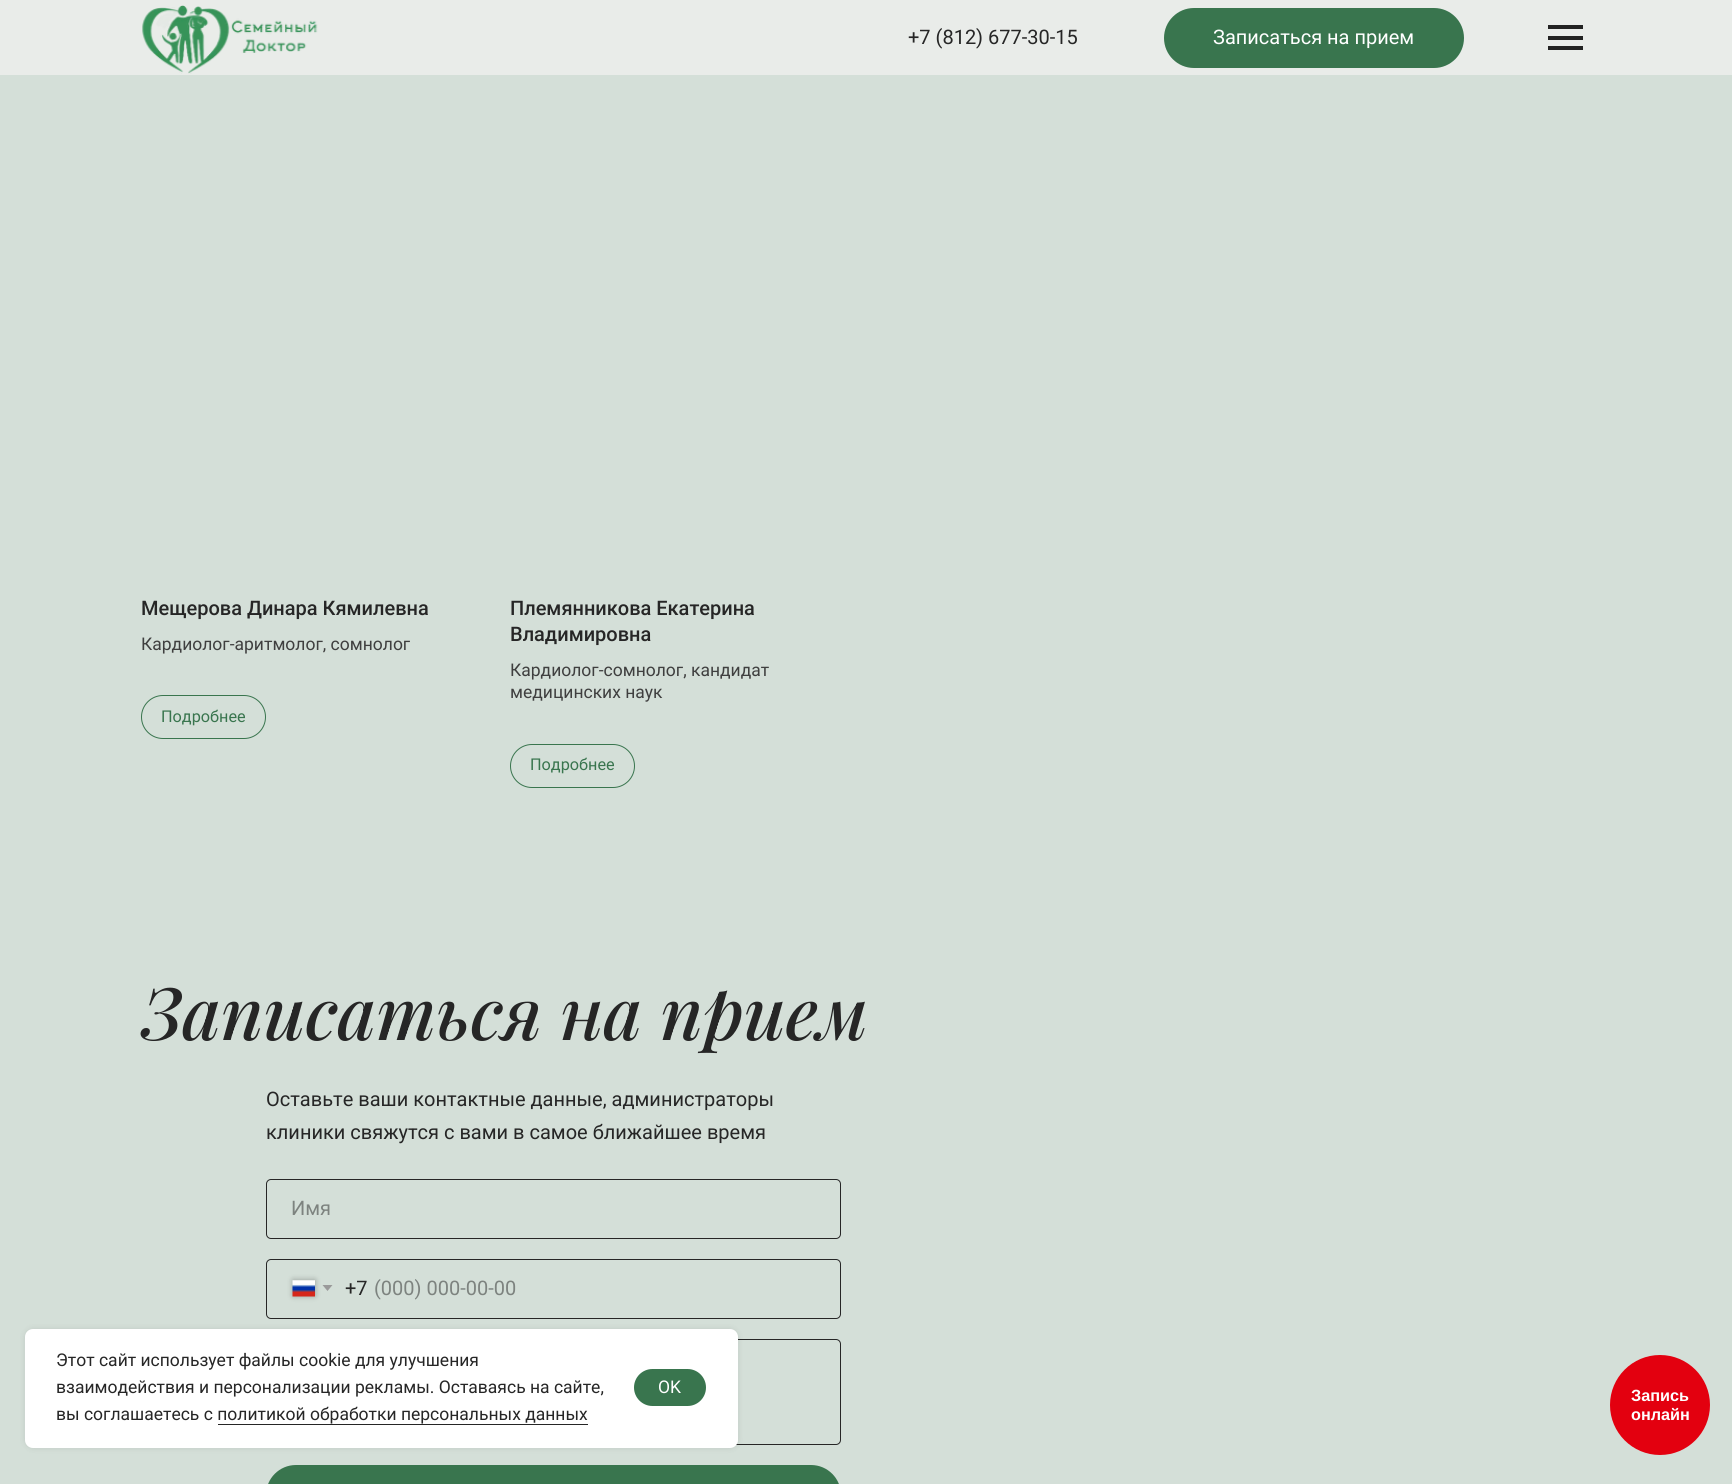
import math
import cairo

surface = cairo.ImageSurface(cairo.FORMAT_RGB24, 1732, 1484)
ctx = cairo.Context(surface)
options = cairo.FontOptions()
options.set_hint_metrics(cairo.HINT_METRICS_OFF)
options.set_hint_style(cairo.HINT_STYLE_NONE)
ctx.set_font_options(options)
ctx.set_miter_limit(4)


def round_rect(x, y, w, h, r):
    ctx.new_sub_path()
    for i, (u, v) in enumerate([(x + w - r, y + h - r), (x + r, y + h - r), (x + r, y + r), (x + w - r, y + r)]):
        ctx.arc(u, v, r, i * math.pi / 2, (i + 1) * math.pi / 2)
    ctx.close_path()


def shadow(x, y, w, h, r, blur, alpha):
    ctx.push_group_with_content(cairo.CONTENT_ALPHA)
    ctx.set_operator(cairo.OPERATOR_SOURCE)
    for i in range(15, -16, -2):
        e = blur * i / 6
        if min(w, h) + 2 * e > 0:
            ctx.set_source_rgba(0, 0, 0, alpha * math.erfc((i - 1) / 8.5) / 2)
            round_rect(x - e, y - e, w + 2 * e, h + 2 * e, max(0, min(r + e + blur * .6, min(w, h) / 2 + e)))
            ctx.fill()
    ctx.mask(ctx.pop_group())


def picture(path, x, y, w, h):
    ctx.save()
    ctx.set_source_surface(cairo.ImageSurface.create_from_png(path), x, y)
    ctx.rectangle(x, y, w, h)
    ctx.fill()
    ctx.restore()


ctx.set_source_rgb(0.831, 0.875, 0.847)
ctx.paint()
ctx.set_source_rgb(0.914, 0.922, 0.914)
ctx.rectangle(0, 0, 1732, 75)
ctx.fill()
picture("img1.png", 142, 5, 176, 69)
ctx.select_font_face("Roboto")
ctx.set_font_size(20)
ctx.set_source_rgb(0.149, 0.149, 0.149)
ctx.move_to(908, 44)
ctx.show_text("+7 (812) 677-30-15")
ctx.set_source_rgb(0.224, 0.459, 0.306)
round_rect(1164, 8, 300, 60, 30)
ctx.fill()
ctx.set_source_rgb(1, 1, 1)
ctx.move_to(1213, 44)
ctx.show_text("Записаться на прием")
ctx.set_source_rgb(0.133, 0.133, 0.133)
ctx.rectangle(1548, 25, 35, 4)
ctx.fill()
ctx.rectangle(1548, 36, 35, 4)
ctx.fill()
ctx.rectangle(1548, 46, 35, 4)
ctx.fill()
ctx.select_font_face("Roboto Medium")
ctx.set_source_rgb(0.149, 0.149, 0.149)
ctx.move_to(141, 615)
ctx.show_text("Мещерова Динара Кямилевна")
ctx.select_font_face("Roboto")
ctx.set_font_size(17.5)
ctx.set_source_rgb(0.247, 0.247, 0.247)
ctx.move_to(141, 650)
ctx.show_text("Кардиолог-аритмолог, сомнолог")
round_rect(141.5, 695.5, 124, 43, 21.5)
ctx.set_source_rgb(0.224, 0.459, 0.306)
ctx.set_line_width(1)
ctx.stroke()
ctx.set_font_size(16.25)
ctx.move_to(161, 722)
ctx.show_text("Подробнее")
ctx.select_font_face("Roboto Medium")
ctx.set_font_size(20)
ctx.set_source_rgb(0.149, 0.149, 0.149)
ctx.move_to(510, 615)
ctx.show_text("Племянникова Екатерина")
ctx.move_to(510, 641)
ctx.show_text("Владимировна")
ctx.select_font_face("Roboto")
ctx.set_font_size(17.5)
ctx.set_source_rgb(0.247, 0.247, 0.247)
ctx.move_to(510, 676)
ctx.show_text("Кардиолог-сомнолог, кандидат")
ctx.move_to(510, 698)
ctx.show_text("медицинских наук")
round_rect(510.5, 744.5, 124, 43, 21.5)
ctx.set_source_rgb(0.224, 0.459, 0.306)
ctx.stroke()
ctx.set_font_size(16.25)
ctx.move_to(530, 770)
ctx.show_text("Подробнее")
ctx.select_font_face("Playfair Display Medium", cairo.FONT_SLANT_ITALIC)
ctx.set_font_size(72.5)
ctx.set_source_rgb(0.149, 0.149, 0.149)
ctx.move_to(141, 1040)
ctx.show_text("Записаться на прием")
ctx.select_font_face("Roboto")
ctx.set_font_size(20)
ctx.move_to(266, 1106)
ctx.show_text("Оставьте ваши контактные данные, администраторы")
ctx.move_to(266, 1139)
ctx.show_text("клиники свяжутся с вами в самое ближайшее время")
round_rect(266.5, 1179.5, 574, 59, 4.5)
ctx.stroke()
ctx.set_source_rgb(0.49, 0.514, 0.498)
ctx.move_to(291, 1215)
ctx.show_text("Имя")
round_rect(266.5, 1259.5, 574, 59, 4.5)
ctx.set_source_rgb(0.149, 0.149, 0.149)
ctx.stroke()
ctx.set_source_rgb(0, 0, 0)
shadow(293, 1280, 22, 16, 0, 3, 0.3)
picture("img2.png", 292, 1280, 23, 17)
ctx.set_source_rgb(0.604, 0.604, 0.604)
ctx.new_path()
ctx.move_to(322.5, 1285)
ctx.line_to(332.5, 1285)
ctx.line_to(327.5, 1291)
ctx.close_path()
ctx.fill()
ctx.set_source_rgb(0.149, 0.149, 0.149)
ctx.move_to(345, 1295)
ctx.show_text("+7")
ctx.set_source_rgb(0.49, 0.514, 0.498)
ctx.move_to(374, 1295)
ctx.show_text("(000) 000-00-00")
round_rect(266.5, 1339.5, 574, 105, 4.5)
ctx.set_source_rgb(0.149, 0.149, 0.149)
ctx.stroke()
ctx.set_source_rgb(0.224, 0.459, 0.306)
round_rect(266, 1465, 575, 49, 30)
ctx.fill()
ctx.set_source_rgb(0, 0, 0)
shadow(25, 1329, 713, 119, 8, 3, 0.1)
ctx.set_source_rgb(1, 1, 1)
round_rect(25, 1329, 713, 119, 8)
ctx.fill()
ctx.set_font_size(17.5)
ctx.set_source_rgb(0.149, 0.149, 0.149)
ctx.move_to(56, 1366)
ctx.show_text("Этот сайт использует файлы cookie для улучшения")
ctx.move_to(56, 1393)
ctx.show_text("взаимодействия и персонализации рекламы. Оставаясь на сайте,")
ctx.move_to(56, 1420)
ctx.show_text("вы соглашаетесь с политикой обработки персональных данных")
ctx.rectangle(218, 1424, 370, 1)
ctx.fill()
ctx.set_source_rgb(0.224, 0.459, 0.306)
round_rect(634, 1369, 72, 37, 18.5)
ctx.fill()
ctx.set_source_rgb(1, 1, 1)
ctx.move_to(658, 1393)
ctx.show_text("OK")
ctx.set_source_rgb(0.89, 0, 0.059)
ctx.new_path()
ctx.arc(1660, 1405, 50, 0, 2 * math.pi)
ctx.fill()
ctx.select_font_face("Liberation Sans", cairo.FONT_SLANT_NORMAL, cairo.FONT_WEIGHT_BOLD)
ctx.set_font_size(16.25)
ctx.set_source_rgb(1, 1, 1)
ctx.move_to(1631, 1401)
ctx.show_text("Запись")
ctx.move_to(1631, 1420)
ctx.show_text("онлайн")
surface.write_to_png("page.png")
